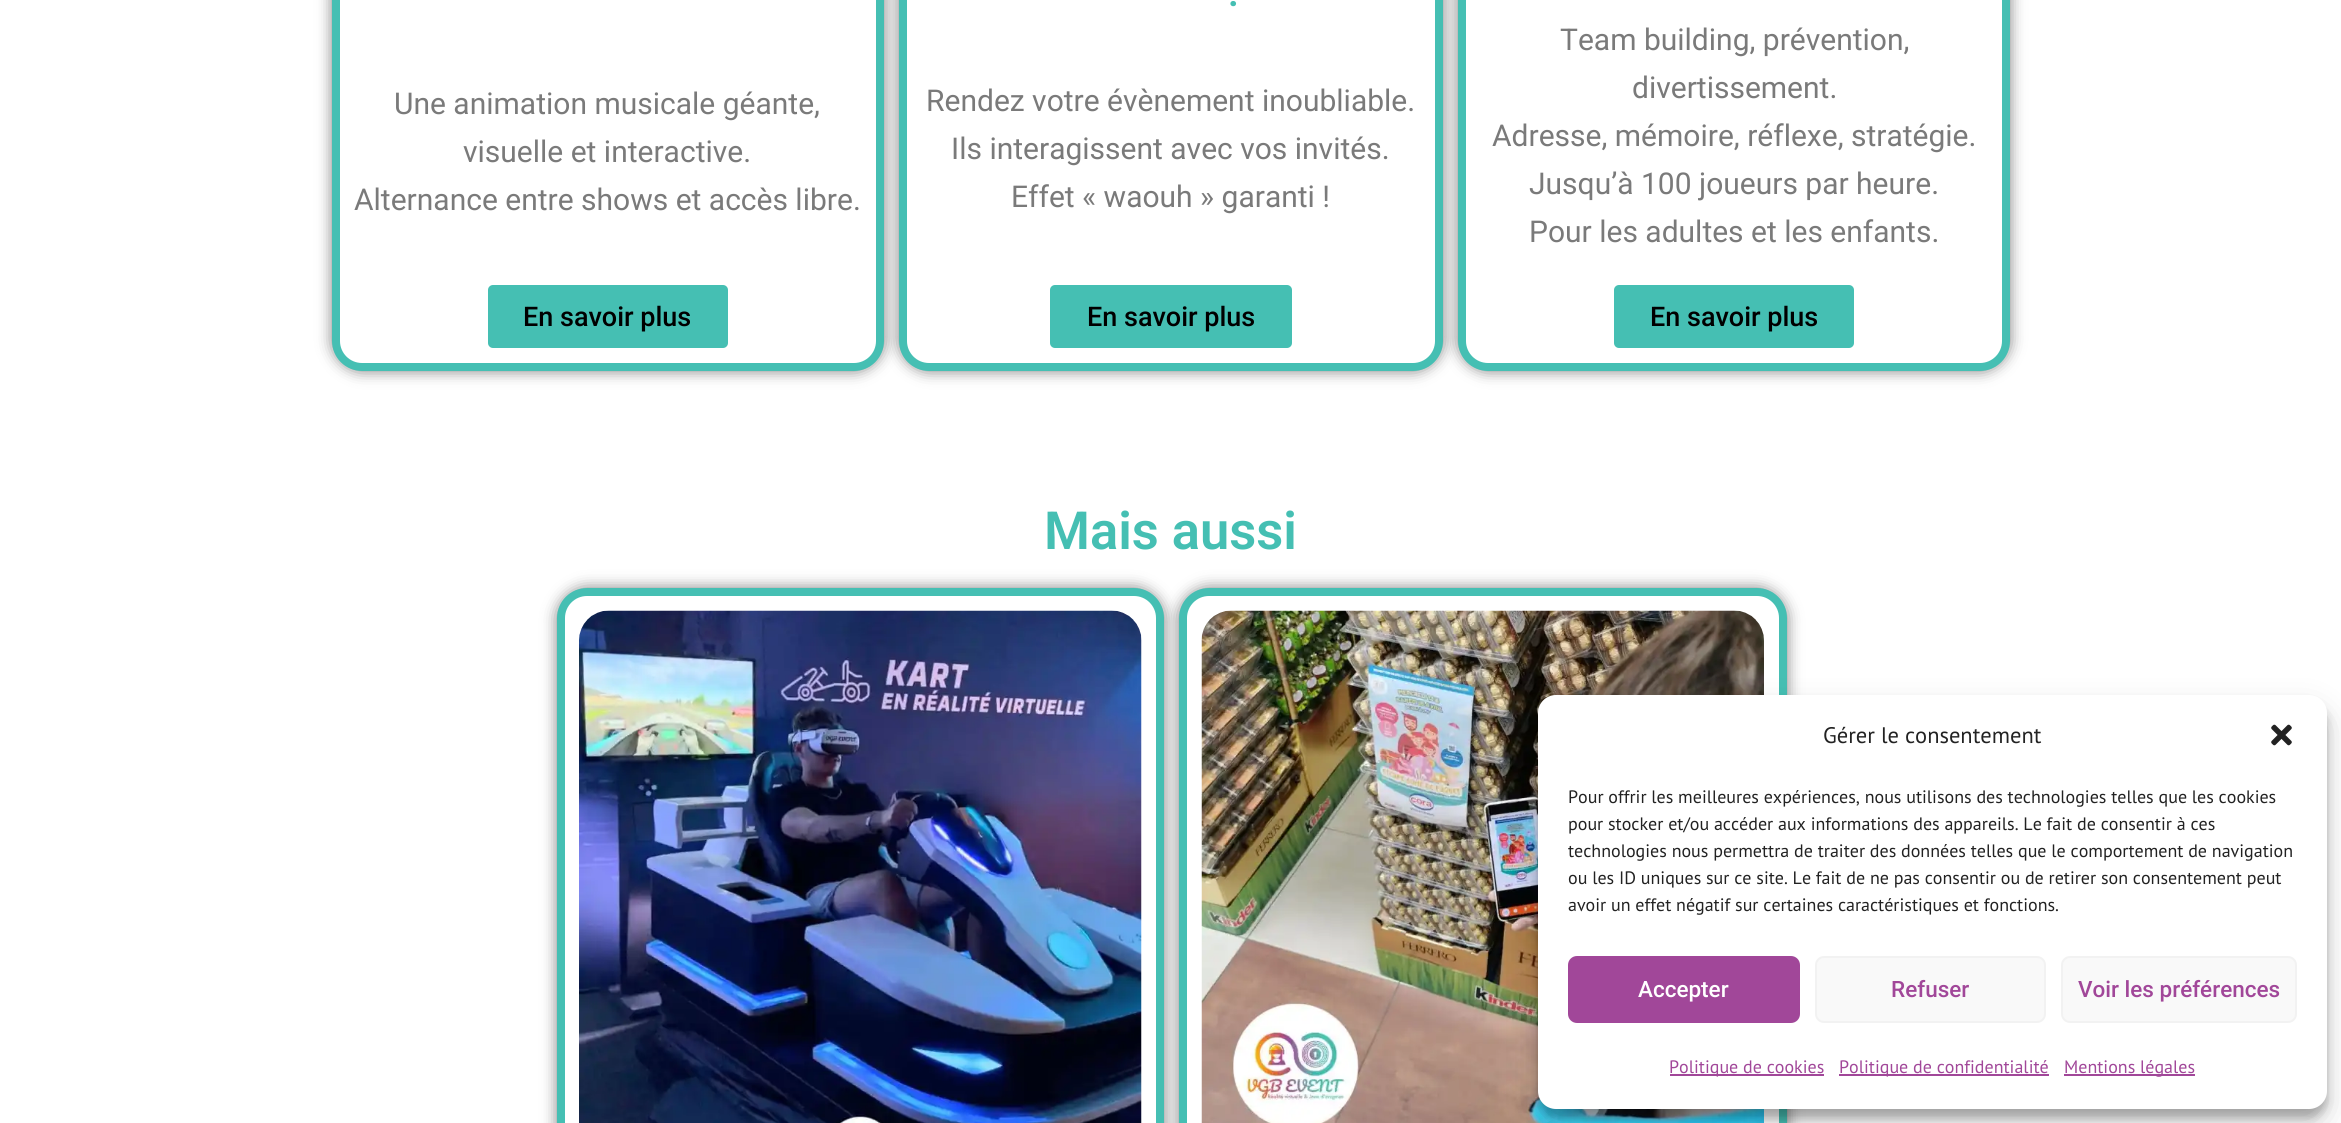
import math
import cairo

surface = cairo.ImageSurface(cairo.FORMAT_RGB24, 2341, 1123)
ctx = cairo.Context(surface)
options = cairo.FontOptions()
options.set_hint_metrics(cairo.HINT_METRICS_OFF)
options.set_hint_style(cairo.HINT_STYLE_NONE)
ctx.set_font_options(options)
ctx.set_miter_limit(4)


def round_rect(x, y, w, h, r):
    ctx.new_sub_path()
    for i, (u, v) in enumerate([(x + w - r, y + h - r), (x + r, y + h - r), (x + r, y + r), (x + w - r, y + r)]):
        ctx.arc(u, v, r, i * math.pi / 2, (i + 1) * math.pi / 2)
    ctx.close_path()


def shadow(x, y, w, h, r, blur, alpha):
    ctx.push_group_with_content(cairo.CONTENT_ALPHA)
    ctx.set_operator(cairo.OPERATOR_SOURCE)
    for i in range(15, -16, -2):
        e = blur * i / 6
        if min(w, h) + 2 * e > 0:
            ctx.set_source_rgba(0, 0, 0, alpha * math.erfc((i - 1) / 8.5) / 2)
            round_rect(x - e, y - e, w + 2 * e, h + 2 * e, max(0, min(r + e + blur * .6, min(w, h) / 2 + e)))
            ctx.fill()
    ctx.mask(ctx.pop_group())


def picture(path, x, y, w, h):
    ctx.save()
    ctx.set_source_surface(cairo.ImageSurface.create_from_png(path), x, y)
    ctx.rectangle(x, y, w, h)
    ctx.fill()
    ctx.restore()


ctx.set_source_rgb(1, 1, 1)
ctx.paint()
ctx.set_source_rgb(0, 0, 0)
shadow(332, -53, 552, 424, 30, 7.5, 0.5)
ctx.set_source_rgb(1, 1, 1)
round_rect(336, -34, 544, 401, 26)
ctx.fill_preserve()
ctx.set_source_rgb(0.271, 0.749, 0.702)
ctx.set_line_width(8)
ctx.stroke()
ctx.select_font_face("Roboto")
ctx.set_font_size(30)
ctx.set_source_rgb(0.478, 0.478, 0.478)
ctx.move_to(394, 114)
ctx.show_text("Une animation musicale géante,")
ctx.move_to(463, 162)
ctx.show_text("visuelle et interactive.")
ctx.move_to(354, 210)
ctx.show_text("Alternance entre shows et accès libre.")
ctx.set_source_rgb(0.271, 0.749, 0.702)
round_rect(488, 285, 240, 63, 5)
ctx.fill()
ctx.select_font_face("Roboto Medium")
ctx.set_font_size(27)
ctx.set_source_rgb(0, 0, 0)
ctx.move_to(523, 326)
ctx.show_text("En savoir plus")
ctx.set_source_rgb(0, 0, 0)
shadow(899, -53, 544, 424, 30, 7.5, 0.5)
ctx.set_source_rgb(1, 1, 1)
round_rect(903, -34, 536, 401, 26)
ctx.fill_preserve()
ctx.set_source_rgb(0.271, 0.749, 0.702)
ctx.stroke()
ctx.select_font_face("Roboto SemiBold")
ctx.set_font_size(38)
ctx.move_to(1228, 6)
ctx.show_text(".")
ctx.select_font_face("Roboto")
ctx.set_font_size(30)
ctx.set_source_rgb(0.478, 0.478, 0.478)
ctx.move_to(926, 111)
ctx.show_text("Rendez votre évènement inoubliable.")
ctx.move_to(951, 159)
ctx.show_text("Ils interagissent avec vos invités.")
ctx.move_to(1011, 207)
ctx.show_text("Effet « waouh » garanti !")
ctx.set_source_rgb(0.271, 0.749, 0.702)
round_rect(1050, 285, 242, 63, 5)
ctx.fill()
ctx.select_font_face("Roboto Medium")
ctx.set_font_size(27)
ctx.set_source_rgb(0, 0, 0)
ctx.move_to(1087, 326)
ctx.show_text("En savoir plus")
ctx.set_source_rgb(0, 0, 0)
shadow(1458, -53, 552, 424, 30, 7.5, 0.5)
ctx.set_source_rgb(1, 1, 1)
round_rect(1462, -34, 544, 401, 26)
ctx.fill_preserve()
ctx.set_source_rgb(0.271, 0.749, 0.702)
ctx.stroke()
ctx.select_font_face("Roboto")
ctx.set_font_size(30)
ctx.set_source_rgb(0.478, 0.478, 0.478)
ctx.move_to(1560, 50)
ctx.show_text("Team building, prévention,")
ctx.move_to(1632, 98)
ctx.show_text("divertissement.")
ctx.move_to(1492, 146)
ctx.show_text("Adresse, mémoire, réflexe, stratégie.")
ctx.move_to(1529, 194)
ctx.show_text("Jusqu’à 100 joueurs par heure.")
ctx.move_to(1529, 242)
ctx.show_text("Pour les adultes et les enfants.")
ctx.set_source_rgb(0.271, 0.749, 0.702)
round_rect(1614, 285, 240, 63, 5)
ctx.fill()
ctx.select_font_face("Roboto Medium")
ctx.set_font_size(27)
ctx.set_source_rgb(0, 0, 0)
ctx.move_to(1650, 326)
ctx.show_text("En savoir plus")
ctx.select_font_face("Roboto SemiBold")
ctx.set_font_size(52.5)
ctx.set_source_rgb(0.271, 0.749, 0.702)
ctx.move_to(1044, 549)
ctx.show_text("Mais aussi")
ctx.set_source_rgb(0, 0, 0)
shadow(557, 588, 607, 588, 30, 7.5, 0.5)
ctx.set_source_rgb(1, 1, 1)
round_rect(561, 592, 599, 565, 26)
ctx.fill_preserve()
ctx.set_source_rgb(0.271, 0.749, 0.702)
ctx.stroke()
picture("img1.png", 579, 610, 563, 513)
ctx.set_source_rgb(0, 0, 0)
shadow(1179, 588, 608, 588, 30, 7.5, 0.5)
ctx.set_source_rgb(1, 1, 1)
round_rect(1183, 592, 600, 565, 26)
ctx.fill_preserve()
ctx.set_source_rgb(0.271, 0.749, 0.702)
ctx.stroke()
picture("img2.png", 1201, 610, 563, 513)
ctx.set_source_rgb(0, 0, 0)
shadow(1538, 704, 789, 414, 18, 4.5, 0.23)
shadow(1538, 710, 789, 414, 18, 15, 0.19)
ctx.set_source_rgb(1, 1, 1)
round_rect(1538, 695, 789, 414, 18)
ctx.fill()
ctx.select_font_face("PT Sans")
ctx.set_font_size(22.5)
ctx.set_source_rgb(0.133, 0.133, 0.133)
ctx.move_to(1823, 743)
ctx.show_text("Gérer le consentement")
picture("img3.png", 2271, 724, 21, 22)
ctx.set_font_size(18)
ctx.move_to(1568, 803)
ctx.show_text("Pour offrir les meilleures expériences, nous utilisons des technologies telles que les cookies")
ctx.move_to(1568, 830)
ctx.show_text("pour stocker et/ou accéder aux informations des appareils. Le fait de consentir à ces")
ctx.move_to(1568, 857)
ctx.show_text("technologies nous permettra de traiter des données telles que le comportement de navigation")
ctx.move_to(1568, 884)
ctx.show_text("ou les ID uniques sur ce site. Le fait de ne pas consentir ou de retirer son consentement peut")
ctx.move_to(1568, 911)
ctx.show_text("avoir un effet négatif sur certaines caractéristiques et fonctions.")
ctx.set_source_rgb(0.631, 0.278, 0.6)
round_rect(1569, 957, 230, 65, 8)
ctx.fill_preserve()
ctx.set_line_width(2)
ctx.stroke()
ctx.select_font_face("Roboto Medium")
ctx.set_font_size(22.5)
ctx.set_source_rgb(1, 1, 1)
ctx.move_to(1638, 997)
ctx.show_text("Accepter")
ctx.set_source_rgb(0.976, 0.976, 0.976)
round_rect(1816, 957, 229, 65, 8)
ctx.fill_preserve()
ctx.set_source_rgb(0.949, 0.949, 0.949)
ctx.stroke()
ctx.set_source_rgb(0.631, 0.278, 0.6)
ctx.move_to(1891, 997)
ctx.show_text("Refuser")
ctx.set_source_rgb(0.976, 0.976, 0.976)
round_rect(2062, 957, 234, 65, 8)
ctx.fill_preserve()
ctx.set_source_rgb(0.949, 0.949, 0.949)
ctx.stroke()
ctx.set_source_rgb(0.631, 0.278, 0.6)
ctx.move_to(2078, 997)
ctx.show_text("Voir les préférences")
ctx.rectangle(1670, 1074, 154, 2)
ctx.fill()
ctx.select_font_face("PT Sans")
ctx.set_font_size(18)
ctx.move_to(1669, 1073)
ctx.show_text("Politique de cookies")
ctx.rectangle(1839, 1074, 210, 2)
ctx.fill()
ctx.move_to(1839, 1073)
ctx.show_text("Politique de confidentialité")
ctx.rectangle(2064, 1074, 131, 2)
ctx.fill()
ctx.move_to(2064, 1073)
ctx.show_text("Mentions légales")
surface.write_to_png("page.png")
